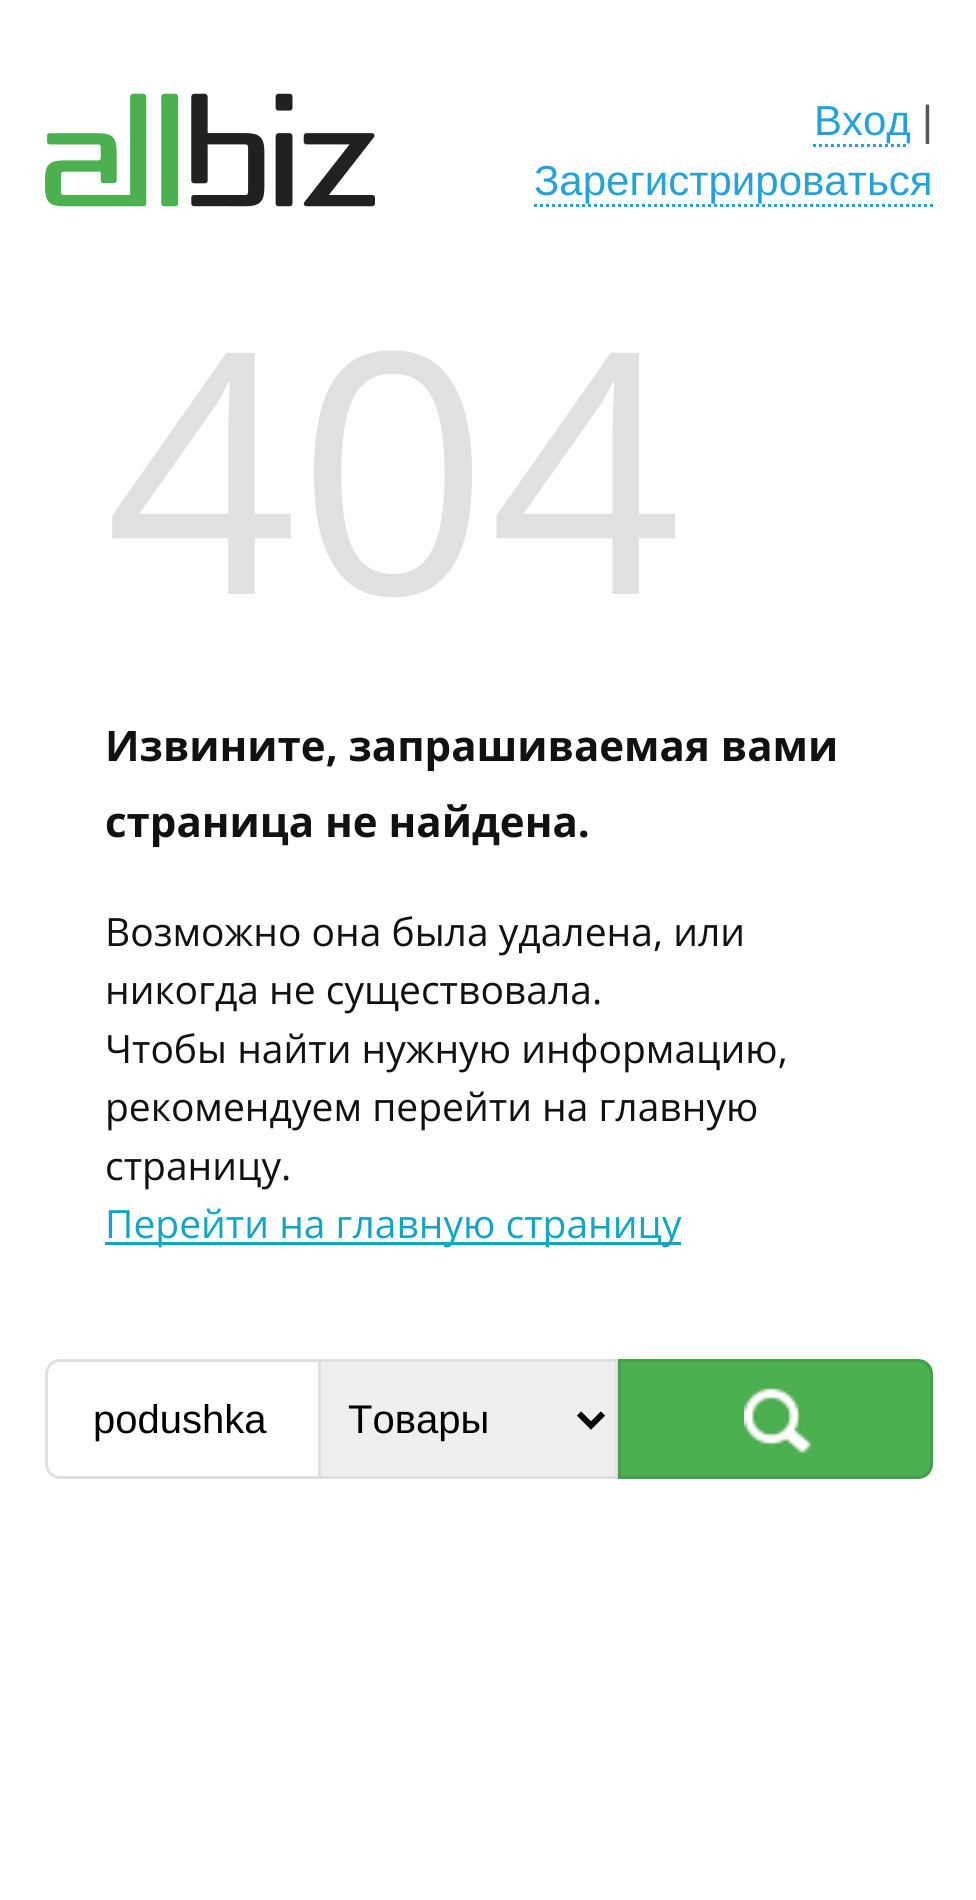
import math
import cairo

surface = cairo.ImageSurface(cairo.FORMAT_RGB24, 976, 1900)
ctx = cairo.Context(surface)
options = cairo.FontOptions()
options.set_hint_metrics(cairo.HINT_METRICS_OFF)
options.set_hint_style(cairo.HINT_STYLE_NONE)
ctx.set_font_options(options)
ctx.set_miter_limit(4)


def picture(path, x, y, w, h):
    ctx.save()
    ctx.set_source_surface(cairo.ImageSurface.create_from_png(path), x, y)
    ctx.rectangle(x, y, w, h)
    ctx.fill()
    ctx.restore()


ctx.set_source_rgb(1, 1, 1)
ctx.paint()
picture("img1.png", 45, 93, 330, 114)
ctx.select_font_face("Liberation Sans")
ctx.set_font_size(42)
ctx.set_source_rgb(0.153, 0.635, 0.839)
ctx.move_to(814, 135)
ctx.show_text("Вход")
ctx.new_path()
ctx.move_to(813, 145.5)
ctx.line_to(909, 145.5)
ctx.set_line_width(3)
ctx.set_dash([3, 3])
ctx.stroke()
ctx.set_source_rgb(0.329, 0.329, 0.329)
ctx.move_to(922, 135)
ctx.show_text("|")
ctx.set_source_rgb(0.153, 0.635, 0.839)
ctx.move_to(534, 195)
ctx.show_text("Зарегистрироваться")
ctx.new_path()
ctx.move_to(534, 205.5)
ctx.line_to(933, 205.5)
ctx.stroke()
ctx.select_font_face("Open Sans")
ctx.set_font_size(336)
ctx.set_source_rgb(0.882, 0.882, 0.882)
ctx.move_to(105, 594)
ctx.show_text("404")
ctx.select_font_face("Open Sans", cairo.FONT_SLANT_NORMAL, cairo.FONT_WEIGHT_BOLD)
ctx.set_font_size(42)
ctx.set_source_rgb(0.067, 0.067, 0.067)
ctx.move_to(105, 761)
ctx.show_text("Извините, запрашиваемая вами")
ctx.move_to(105, 837)
ctx.show_text("страница не найдена.")
ctx.select_font_face("Open Sans")
ctx.set_font_size(39)
ctx.move_to(105, 946)
ctx.show_text("Возможно она была удалена, или")
ctx.move_to(105, 1004)
ctx.show_text("никогда не существовала.")
ctx.move_to(105, 1063)
ctx.show_text("Чтобы найти нужную информацию,")
ctx.move_to(105, 1121)
ctx.show_text("рекомендуем перейти на главную")
ctx.move_to(105, 1180)
ctx.show_text("страницу.")
ctx.set_source_rgb(0.078, 0.647, 0.757)
ctx.rectangle(105, 1242, 576, 3)
ctx.fill()
ctx.move_to(105, 1238)
ctx.show_text("Перейти на главную страницу")
ctx.set_source_rgb(0.878, 0.878, 0.878)
ctx.set_fill_rule(cairo.FILL_RULE_EVEN_ODD)
ctx.new_path()
ctx.move_to(60, 1359)
ctx.line_to(318, 1359)
ctx.line_to(318, 1479)
ctx.line_to(60, 1479)
ctx.curve_to(52, 1479, 45, 1472, 45, 1464)
ctx.line_to(45, 1374)
ctx.curve_to(45, 1366, 52, 1359, 60, 1359)
ctx.close_path()
ctx.move_to(60, 1362)
ctx.line_to(318, 1362)
ctx.line_to(318, 1476)
ctx.line_to(60, 1476)
ctx.curve_to(53, 1476, 48, 1471, 48, 1464)
ctx.line_to(48, 1374)
ctx.curve_to(48, 1367, 53, 1362, 60, 1362)
ctx.close_path()
ctx.fill()
ctx.select_font_face("Liberation Sans")
ctx.set_font_size(40)
ctx.set_source_rgb(0, 0, 0)
ctx.move_to(93, 1433)
ctx.show_text("podushka")
ctx.set_source_rgb(0.937, 0.937, 0.937)
ctx.rectangle(319.5, 1360.5, 297, 117)
ctx.fill_preserve()
ctx.set_source_rgb(0.878, 0.878, 0.878)
ctx.set_dash([])
ctx.stroke()
ctx.new_path()
ctx.move_to(579, 1413.5)
ctx.line_to(591, 1425.5)
ctx.line_to(603, 1413.5)
ctx.set_source_rgb(0, 0, 0)
ctx.set_line_width(6)
ctx.stroke()
ctx.move_to(348, 1433)
ctx.show_text("Товары")
ctx.set_source_rgb(0.298, 0.686, 0.314)
ctx.new_path()
ctx.move_to(618, 1359)
ctx.line_to(918, 1359)
ctx.curve_to(926.5, 1359, 933, 1365.5, 933, 1374)
ctx.line_to(933, 1464)
ctx.curve_to(933, 1472.5, 926.5, 1479, 918, 1479)
ctx.line_to(618, 1479)
ctx.close_path()
ctx.fill()
picture("img2.png", 744, 1387, 67, 66)
ctx.new_path()
ctx.move_to(619.5, 1360.5)
ctx.line_to(918, 1360.5)
ctx.curve_to(925.5, 1360.5, 931.5, 1366.5, 931.5, 1374)
ctx.line_to(931.5, 1464)
ctx.curve_to(931.5, 1471.5, 925.5, 1477.5, 918, 1477.5)
ctx.line_to(619.5, 1477.5)
ctx.close_path()
ctx.set_source_rgba(0, 0, 0, 0.1)
ctx.set_line_width(3)
ctx.stroke()
surface.write_to_png("page.png")
